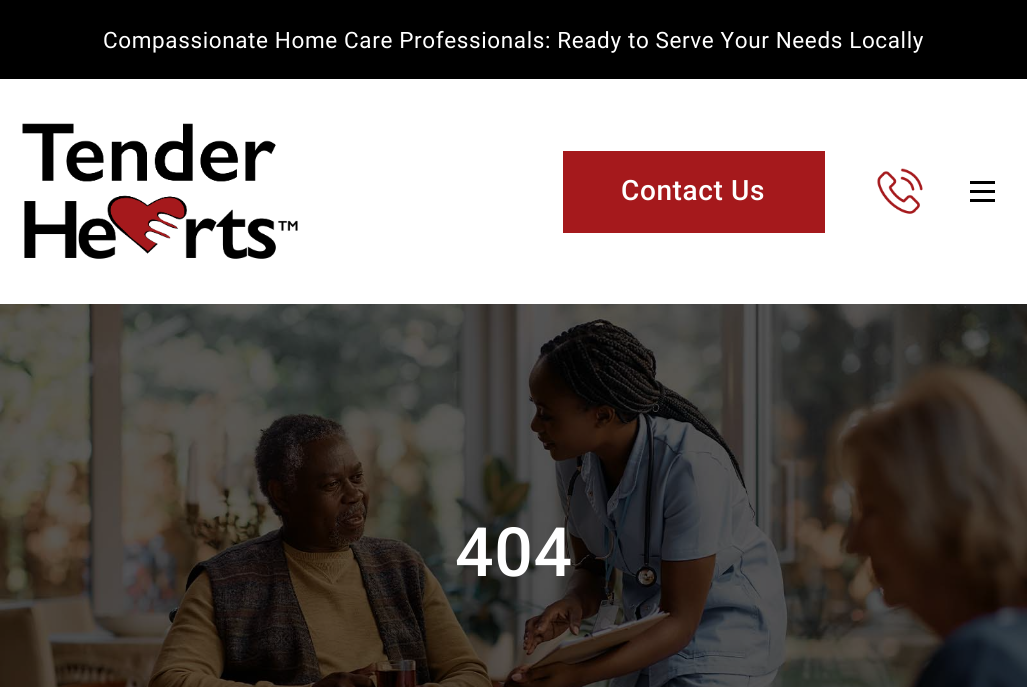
import math
import cairo

surface = cairo.ImageSurface(cairo.FORMAT_RGB24, 1027, 687)
ctx = cairo.Context(surface)
options = cairo.FontOptions()
options.set_hint_metrics(cairo.HINT_METRICS_OFF)
options.set_hint_style(cairo.HINT_STYLE_NONE)
ctx.set_font_options(options)
ctx.set_miter_limit(4)


def spaced_text(x, y, s, letter, word):
    ctx.move_to(x, y)
    for ch in s:
        ctx.show_text(ch)
        ctx.rel_move_to(letter + word * (ch == ' '), 0)


def picture(path, x, y, w, h):
    ctx.save()
    ctx.set_source_surface(cairo.ImageSurface.create_from_png(path), x, y)
    ctx.rectangle(x, y, w, h)
    ctx.fill()
    ctx.restore()


ctx.set_source_rgb(1, 1, 1)
ctx.paint()
ctx.set_source_rgb(0, 0, 0)
ctx.rectangle(0, 0, 1027, 79)
ctx.fill()
ctx.select_font_face("Roboto")
ctx.set_font_size(22.5)
ctx.set_source_rgb(1, 1, 1)
spaced_text(103, 48, "Compassionate Home Care Professionals: Ready to Serve Your Needs Locally", 0.62, 0)
picture("img1.png", 22, 123, 276, 136)
ctx.set_source_rgb(0.647, 0.098, 0.11)
ctx.rectangle(563, 151, 262, 82)
ctx.fill()
ctx.select_font_face("Roboto Medium")
ctx.set_font_size(28)
ctx.set_source_rgb(1, 1, 1)
spaced_text(621, 200, "Contact Us", 0.62, 0)
picture("img2.png", 877, 168, 46, 46)
ctx.set_source_rgb(0, 0, 0)
ctx.rectangle(970, 190, 25, 3)
ctx.fill()
ctx.rectangle(970, 181, 25, 3)
ctx.fill()
ctx.rectangle(970, 199, 25, 3)
ctx.fill()
picture("img3.png", 0, 304, 1027, 383)
ctx.set_font_size(68)
ctx.set_source_rgb(1, 1, 1)
spaced_text(455, 576, "404", 0.62, 0)
surface.write_to_png("page.png")
